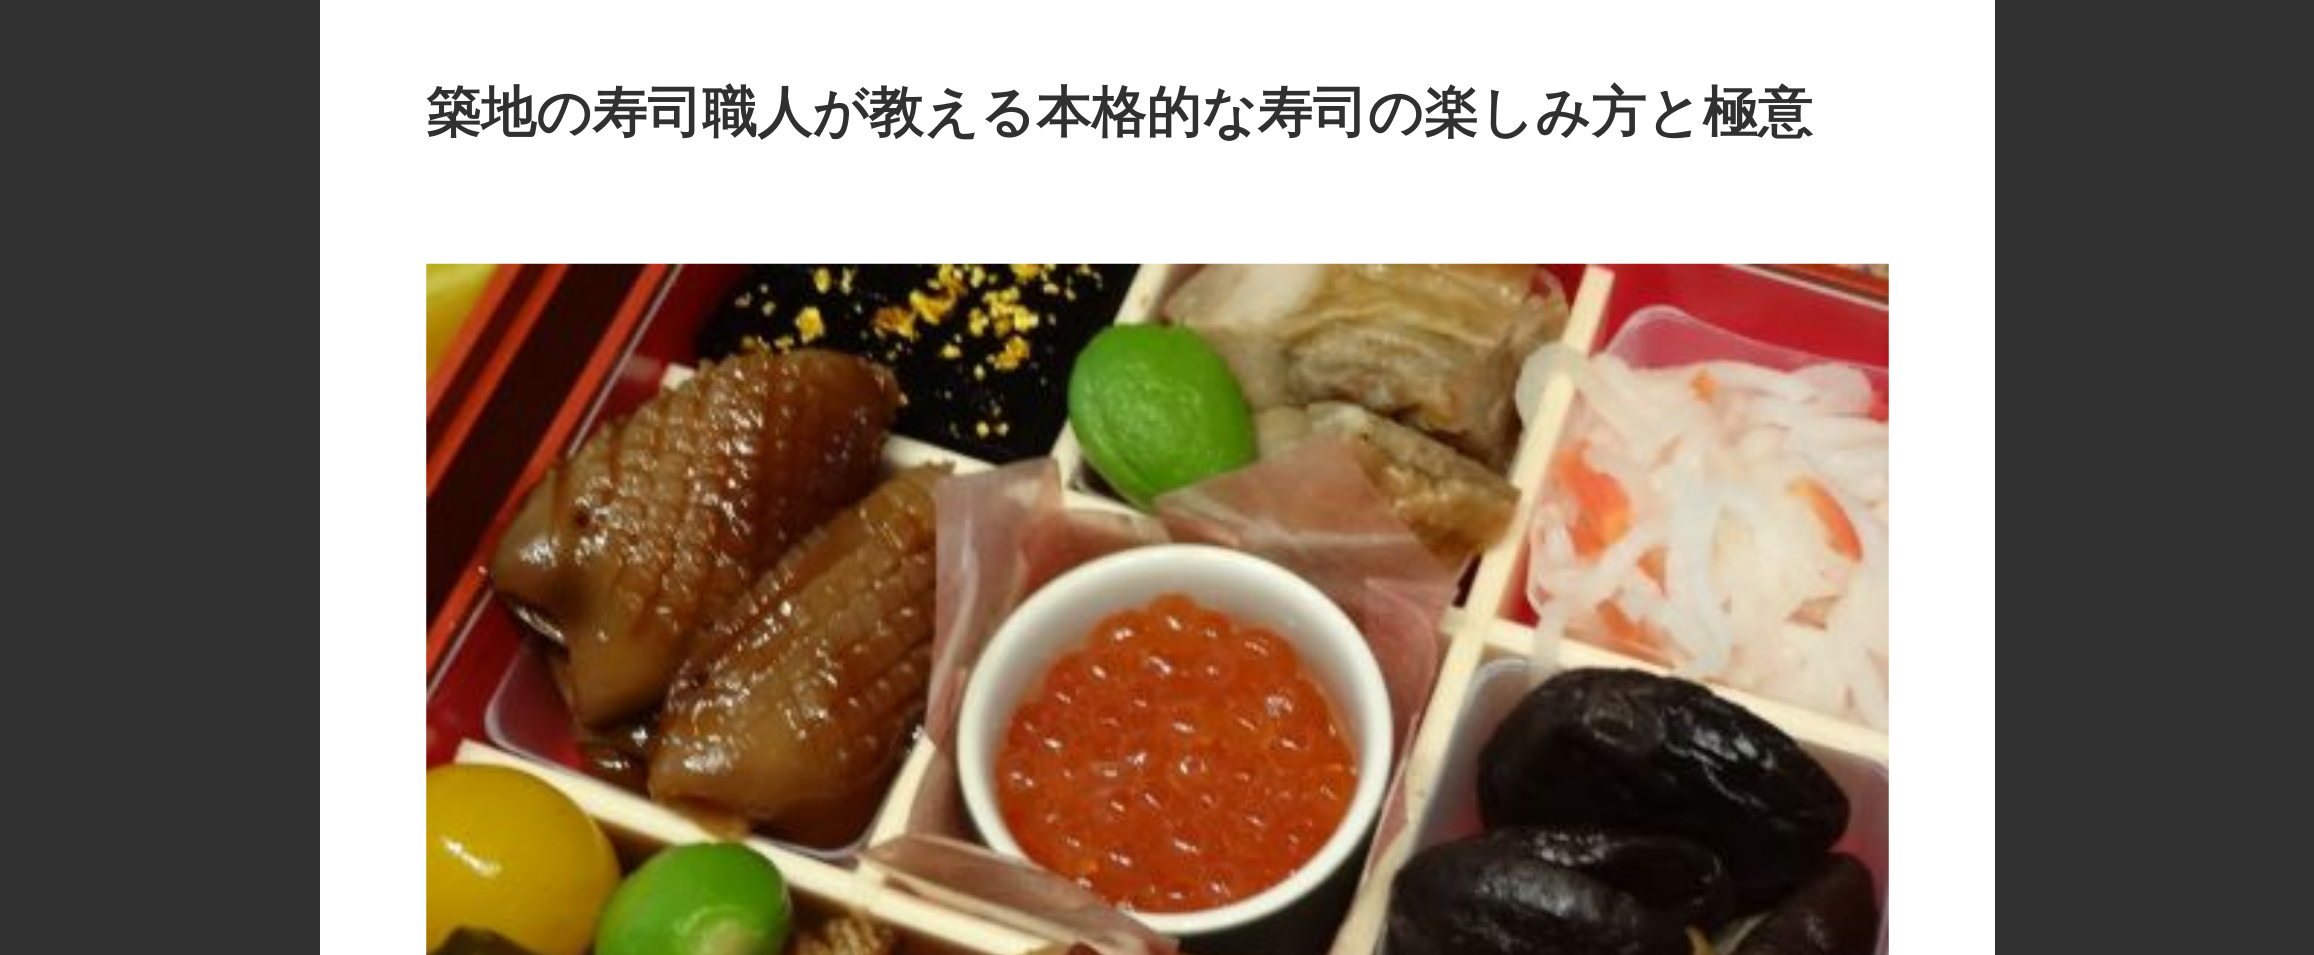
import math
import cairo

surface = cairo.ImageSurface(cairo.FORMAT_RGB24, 2314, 955)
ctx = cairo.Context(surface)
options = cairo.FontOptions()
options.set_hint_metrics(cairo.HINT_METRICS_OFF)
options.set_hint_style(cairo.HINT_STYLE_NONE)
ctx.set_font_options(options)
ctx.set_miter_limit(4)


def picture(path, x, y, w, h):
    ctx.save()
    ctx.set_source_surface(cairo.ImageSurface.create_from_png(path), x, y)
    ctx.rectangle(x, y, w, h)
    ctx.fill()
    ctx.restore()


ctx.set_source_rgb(0.188, 0.188, 0.188)
ctx.paint()
ctx.set_source_rgb(1, 1, 1)
ctx.rectangle(320, 0, 1675, 955)
ctx.fill()
ctx.select_font_face("WenQuanYi Zen Hei", cairo.FONT_SLANT_NORMAL, cairo.FONT_WEIGHT_BOLD)
ctx.set_font_size(55)
ctx.set_source_rgb(0.188, 0.188, 0.188)
ctx.move_to(426, 131)
ctx.show_text("築地の寿司職人が教える本格的な寿司の楽しみ方と極意")
picture("img1.png", 426, 263, 1463, 692)
surface.write_to_png("page.png")
